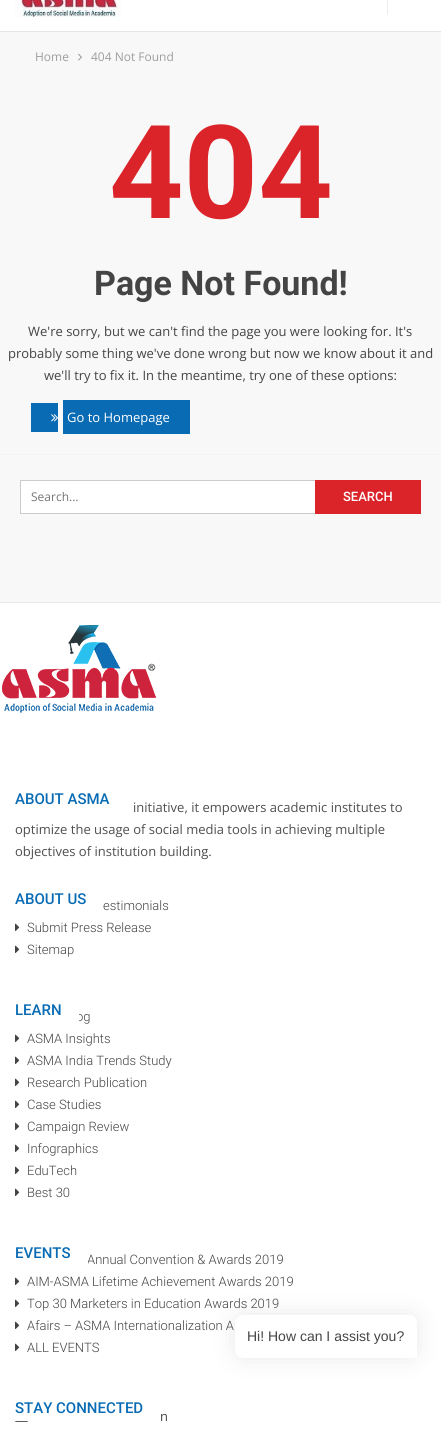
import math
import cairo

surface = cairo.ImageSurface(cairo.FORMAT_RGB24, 441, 1442)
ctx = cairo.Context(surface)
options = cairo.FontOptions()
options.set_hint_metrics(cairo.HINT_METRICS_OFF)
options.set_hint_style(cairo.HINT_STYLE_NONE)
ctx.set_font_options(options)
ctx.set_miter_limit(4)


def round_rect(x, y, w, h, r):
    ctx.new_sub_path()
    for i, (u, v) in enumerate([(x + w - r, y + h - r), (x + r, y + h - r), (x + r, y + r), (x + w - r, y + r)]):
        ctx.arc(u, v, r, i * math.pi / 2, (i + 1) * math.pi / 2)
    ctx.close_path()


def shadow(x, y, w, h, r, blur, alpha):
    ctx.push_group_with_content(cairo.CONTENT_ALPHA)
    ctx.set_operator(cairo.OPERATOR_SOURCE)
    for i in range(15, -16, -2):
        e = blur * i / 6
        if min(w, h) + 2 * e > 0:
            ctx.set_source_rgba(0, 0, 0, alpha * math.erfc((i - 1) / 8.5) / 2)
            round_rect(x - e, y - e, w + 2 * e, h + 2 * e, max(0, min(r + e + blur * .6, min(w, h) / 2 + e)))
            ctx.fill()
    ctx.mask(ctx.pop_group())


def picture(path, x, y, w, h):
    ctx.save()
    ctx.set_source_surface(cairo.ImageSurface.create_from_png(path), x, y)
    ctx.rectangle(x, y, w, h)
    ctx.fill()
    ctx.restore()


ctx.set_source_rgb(0.969, 0.969, 0.969)
ctx.paint()
ctx.set_source_rgb(1, 1, 1)
ctx.rectangle(0, 0, 441, 31)
ctx.fill()
ctx.set_source_rgb(0.898, 0.898, 0.898)
ctx.rectangle(0, 31, 441, 1)
ctx.fill()
picture("img1.png", 15, 0, 106, 17)
ctx.set_source_rgb(0.929, 0.929, 0.929)
ctx.rectangle(387, 0, 1, 15)
ctx.fill()
ctx.select_font_face("Open Sans")
ctx.set_font_size(12)
ctx.set_source_rgb(0.62, 0.62, 0.62)
ctx.move_to(35, 61)
ctx.show_text("Home")
picture("img2.png", 78, 53, 4, 8)
ctx.move_to(91, 61)
ctx.show_text("404 Not Found")
ctx.select_font_face("Roboto", cairo.FONT_SLANT_NORMAL, cairo.FONT_WEIGHT_BOLD)
ctx.set_font_size(130)
ctx.set_source_rgb(0.859, 0.141, 0.161)
ctx.move_to(109, 218)
ctx.show_text("404")
ctx.set_font_size(34)
ctx.set_source_rgb(0.267, 0.267, 0.267)
ctx.move_to(94, 295)
ctx.show_text("Page Not Found!")
ctx.select_font_face("Open Sans")
ctx.set_font_size(13)
ctx.move_to(28, 336)
ctx.show_text("We're sorry, but we can't find the page you were looking for. It's")
ctx.move_to(8, 358)
ctx.show_text("probably some thing we've done wrong but now we know about it and")
ctx.move_to(44, 380)
ctx.show_text("we'll try to fix it. In the meantime, try one of these options:")
ctx.set_source_rgb(0.035, 0.42, 0.706)
ctx.rectangle(31, 403, 27, 29)
ctx.fill()
ctx.rectangle(63, 400, 127, 34)
ctx.fill()
picture("img3.png", 51, 414, 7, 8)
ctx.set_source_rgb(1, 1, 1)
ctx.move_to(67, 422)
ctx.show_text("Go to Homepage")
ctx.set_source_rgb(0.957, 0.957, 0.957)
ctx.rectangle(0, 454, 441, 1)
ctx.fill()
ctx.set_source_rgb(1, 1, 1)
ctx.rectangle(21, 481, 294, 32)
ctx.fill()
ctx.rectangle(20.5, 480.5, 400, 33)
ctx.set_source_rgb(0.796, 0.796, 0.796)
ctx.set_line_width(1)
ctx.stroke()
ctx.set_font_size(12)
ctx.set_source_rgb(0.459, 0.459, 0.459)
ctx.move_to(31, 501)
ctx.show_text("Search...")
ctx.set_source_rgb(0.859, 0.141, 0.161)
ctx.rectangle(315, 480, 106, 34)
ctx.fill()
ctx.select_font_face("Roboto Medium")
ctx.set_font_size(13)
ctx.set_source_rgb(1, 1, 1)
ctx.move_to(343, 501)
ctx.show_text("SEARCH")
ctx.rectangle(0, 603, 441, 839)
ctx.fill()
ctx.set_source_rgb(0.918, 0.918, 0.918)
ctx.rectangle(0, 602, 441, 1)
ctx.fill()
picture("img4.png", 2, 625, 154, 88)
ctx.set_font_size(15)
ctx.set_source_rgb(0.035, 0.42, 0.706)
ctx.move_to(15, 804)
ctx.show_text("ABOUT ASMA")
ctx.select_font_face("Open Sans")
ctx.set_font_size(13)
ctx.set_source_rgb(0.31, 0.31, 0.31)
ctx.move_to(133, 812)
ctx.show_text("initiative, it empowers academic institutes to")
ctx.move_to(15, 834)
ctx.show_text("optimize the usage of social media tools in achieving multiple")
ctx.move_to(15, 856)
ctx.show_text("objectives of institution building.")
ctx.select_font_face("Roboto Medium")
ctx.set_font_size(15)
ctx.set_source_rgb(0.035, 0.42, 0.706)
ctx.move_to(15, 904)
ctx.show_text("ABOUT US")
ctx.select_font_face("Roboto Light")
ctx.set_font_size(13)
ctx.set_source_rgb(0.267, 0.267, 0.267)
ctx.move_to(103, 910)
ctx.show_text("estimonials")
picture("img5.png", 15, 923, 5, 8)
ctx.move_to(27, 932)
ctx.show_text("Submit Press Release")
picture("img5.png", 15, 945, 5, 8)
ctx.move_to(27, 954)
ctx.show_text("Sitemap")
ctx.move_to(76, 1021)
ctx.show_text("og")
ctx.set_source_rgb(1, 1, 1)
ctx.rectangle(76, 1014, 3, 7)
ctx.fill()
ctx.select_font_face("Roboto Medium")
ctx.set_font_size(15)
ctx.set_source_rgb(0.035, 0.42, 0.706)
ctx.move_to(15, 1015)
ctx.show_text("LEARN")
picture("img5.png", 15, 1034, 5, 8)
ctx.select_font_face("Roboto Light")
ctx.set_font_size(13)
ctx.set_source_rgb(0.267, 0.267, 0.267)
ctx.move_to(27, 1043)
ctx.show_text("ASMA Insights")
picture("img5.png", 15, 1056, 5, 8)
ctx.move_to(27, 1065)
ctx.show_text("ASMA India Trends Study")
picture("img5.png", 15, 1078, 5, 8)
ctx.move_to(27, 1087)
ctx.show_text("Research Publication")
picture("img5.png", 15, 1100, 5, 8)
ctx.move_to(27, 1109)
ctx.show_text("Case Studies")
picture("img5.png", 15, 1122, 5, 8)
ctx.move_to(27, 1131)
ctx.show_text("Campaign Review")
picture("img5.png", 15, 1144, 5, 8)
ctx.move_to(27, 1153)
ctx.show_text("Infographics")
picture("img5.png", 15, 1166, 5, 8)
ctx.move_to(27, 1175)
ctx.show_text("EduTech")
picture("img5.png", 15, 1188, 5, 8)
ctx.move_to(27, 1197)
ctx.show_text("Best 30")
ctx.move_to(87, 1264)
ctx.show_text("Annual Convention & Awards 2019")
ctx.set_source_rgb(1, 1, 1)
ctx.rectangle(87, 1262, 1, 2)
ctx.fill()
ctx.select_font_face("Roboto Medium")
ctx.set_font_size(15)
ctx.set_source_rgb(0.035, 0.42, 0.706)
ctx.move_to(15, 1258)
ctx.show_text("EVENTS")
picture("img5.png", 15, 1277, 5, 8)
ctx.select_font_face("Roboto Light")
ctx.set_font_size(13)
ctx.set_source_rgb(0.267, 0.267, 0.267)
ctx.move_to(27, 1286)
ctx.show_text("AIM-ASMA Lifetime Achievement Awards 2019")
picture("img5.png", 15, 1299, 5, 8)
ctx.move_to(27, 1308)
ctx.show_text("Top 30 Marketers in Education Awards 2019")
picture("img5.png", 15, 1321, 5, 8)
ctx.move_to(27, 1330)
ctx.show_text("Afairs – ASMA Internationalization A")
picture("img5.png", 15, 1343, 5, 8)
ctx.move_to(27, 1352)
ctx.show_text("ALL EVENTS")
ctx.select_font_face("Roboto Medium")
ctx.set_font_size(15)
ctx.set_source_rgb(0.035, 0.42, 0.706)
ctx.move_to(15, 1413)
ctx.show_text("STAY CONNECTED")
ctx.select_font_face("Open Sans")
ctx.set_font_size(13)
ctx.set_source_rgb(0.267, 0.267, 0.267)
ctx.move_to(160, 1421)
ctx.show_text("n")
picture("img6.png", 15, 1421, 13, 1)
ctx.set_source_rgb(0.251, 0.247, 0.259)
shadow(235, 1315, 182, 43, 8, 12, 0.12)
ctx.set_source_rgb(1, 1, 1)
ctx.new_path()
ctx.move_to(243, 1315)
ctx.line_to(409, 1315)
ctx.curve_to(413.5, 1315, 417, 1318.5, 417, 1323)
ctx.line_to(417, 1358)
ctx.line_to(243, 1358)
ctx.curve_to(238.5, 1358, 235, 1354.5, 235, 1350)
ctx.line_to(235, 1323)
ctx.curve_to(235, 1318.5, 238.5, 1315, 243, 1315)
ctx.close_path()
ctx.fill()
ctx.select_font_face("Liberation Sans")
ctx.set_font_size(14)
ctx.set_source_rgb(0.267, 0.267, 0.267)
ctx.move_to(247, 1341)
ctx.show_text("Hi! How can I assist you?")
surface.write_to_png("page.png")
